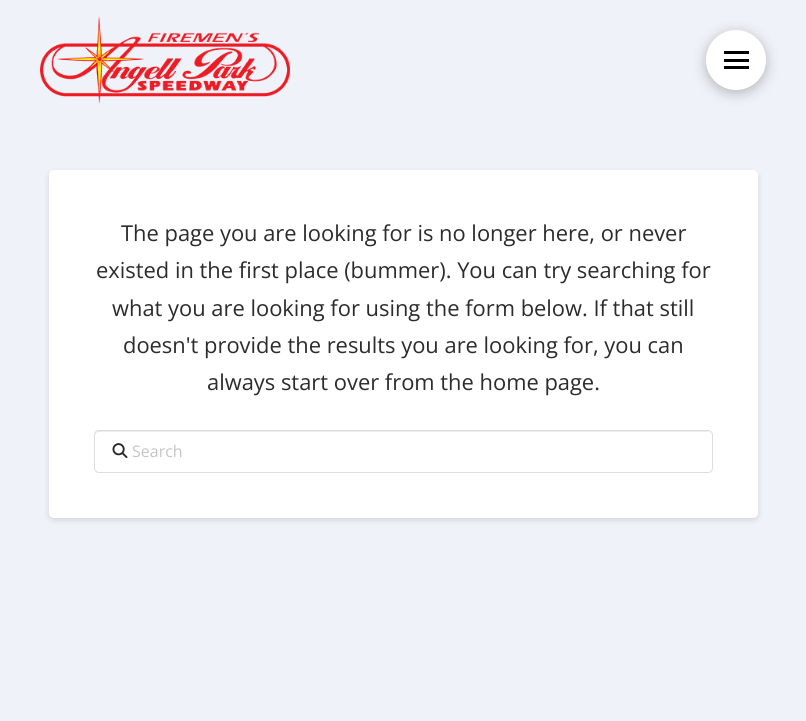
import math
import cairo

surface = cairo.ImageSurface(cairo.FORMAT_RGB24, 806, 721)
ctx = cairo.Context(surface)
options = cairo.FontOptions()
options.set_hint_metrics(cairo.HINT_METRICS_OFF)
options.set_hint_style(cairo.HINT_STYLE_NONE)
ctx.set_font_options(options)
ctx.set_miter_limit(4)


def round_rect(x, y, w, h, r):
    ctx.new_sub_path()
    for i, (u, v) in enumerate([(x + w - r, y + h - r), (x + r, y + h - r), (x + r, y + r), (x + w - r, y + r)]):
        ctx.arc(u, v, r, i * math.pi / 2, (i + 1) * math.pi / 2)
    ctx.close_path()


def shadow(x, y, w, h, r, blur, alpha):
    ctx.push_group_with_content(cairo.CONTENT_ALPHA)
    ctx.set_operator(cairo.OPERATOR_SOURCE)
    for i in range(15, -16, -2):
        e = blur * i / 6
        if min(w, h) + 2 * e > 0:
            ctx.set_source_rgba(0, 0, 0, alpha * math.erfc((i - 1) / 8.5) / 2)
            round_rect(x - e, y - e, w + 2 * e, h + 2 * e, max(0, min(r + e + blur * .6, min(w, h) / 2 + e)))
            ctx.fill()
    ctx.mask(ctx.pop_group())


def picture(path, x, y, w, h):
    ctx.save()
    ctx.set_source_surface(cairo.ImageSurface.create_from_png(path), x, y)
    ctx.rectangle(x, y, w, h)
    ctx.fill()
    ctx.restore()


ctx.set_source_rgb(0.937, 0.953, 0.973)
ctx.paint()
picture("img1.png", 40, 16, 250, 88)
ctx.set_source_rgb(0, 0, 0)
shadow(706, 33, 60, 60, 30, 6.5, 0.25)
ctx.set_source_rgb(1, 1, 1)
ctx.arc(736, 60, 30, 0, 2 * math.pi)
ctx.fill()
ctx.set_source_rgb(0, 0, 0)
ctx.rectangle(724, 51, 25, 3)
ctx.fill()
ctx.rectangle(724, 59, 25, 3)
ctx.fill()
ctx.rectangle(724, 66, 25, 3)
ctx.fill()
ctx.set_source_rgb(0, 0, 0)
shadow(49, 173, 709, 347, 5, 3, 0.13)
ctx.set_source_rgb(1, 1, 1)
round_rect(49, 170, 709, 348, 5)
ctx.fill()
ctx.select_font_face("Open Sans")
ctx.set_font_size(21.9)
ctx.set_source_rgb(0.173, 0.173, 0.173)
ctx.move_to(121, 241)
ctx.show_text("The page you are looking for is no longer here, or never")
ctx.move_to(96, 278)
ctx.show_text("existed in the first place (bummer). You can try searching for")
ctx.move_to(112, 316)
ctx.show_text("what you are looking for using the form below. If that still")
ctx.move_to(123, 353)
ctx.show_text("doesn't provide the results you are looking for, you can")
ctx.move_to(207, 390)
ctx.show_text("always start over from the home page.")
ctx.set_source_rgb(0.925, 0.925, 0.925)
ctx.new_path()
ctx.move_to(99, 432)
ctx.line_to(708, 432)
ctx.curve_to(710, 432, 711, 434, 711, 436)
ctx.line_to(711, 435)
ctx.curve_to(711, 433, 709, 431, 707, 431)
ctx.line_to(99, 431)
ctx.curve_to(97, 431, 95, 433, 95, 435)
ctx.line_to(95, 436)
ctx.curve_to(95, 434, 97, 432, 99, 432)
ctx.close_path()
ctx.fill()
round_rect(94.5, 430.5, 618, 42, 4.5)
ctx.set_source_rgb(0.867, 0.867, 0.867)
ctx.set_line_width(1)
ctx.stroke()
picture("img2.png", 112, 443, 16, 16)
ctx.set_font_size(16)
ctx.set_source_rgb(0.773, 0.773, 0.773)
ctx.move_to(132, 457)
ctx.show_text("Search")
surface.write_to_png("page.png")
